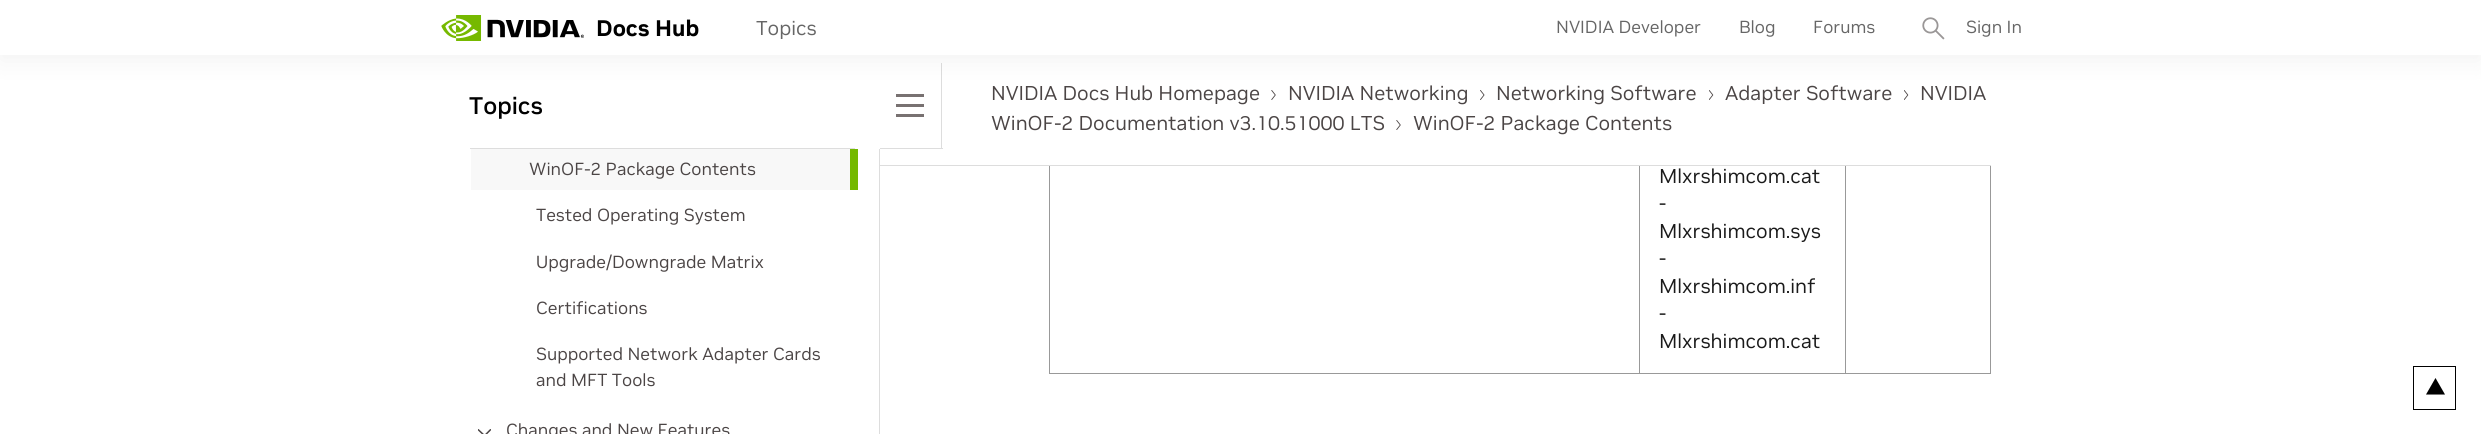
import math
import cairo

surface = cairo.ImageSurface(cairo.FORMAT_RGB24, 2481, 434)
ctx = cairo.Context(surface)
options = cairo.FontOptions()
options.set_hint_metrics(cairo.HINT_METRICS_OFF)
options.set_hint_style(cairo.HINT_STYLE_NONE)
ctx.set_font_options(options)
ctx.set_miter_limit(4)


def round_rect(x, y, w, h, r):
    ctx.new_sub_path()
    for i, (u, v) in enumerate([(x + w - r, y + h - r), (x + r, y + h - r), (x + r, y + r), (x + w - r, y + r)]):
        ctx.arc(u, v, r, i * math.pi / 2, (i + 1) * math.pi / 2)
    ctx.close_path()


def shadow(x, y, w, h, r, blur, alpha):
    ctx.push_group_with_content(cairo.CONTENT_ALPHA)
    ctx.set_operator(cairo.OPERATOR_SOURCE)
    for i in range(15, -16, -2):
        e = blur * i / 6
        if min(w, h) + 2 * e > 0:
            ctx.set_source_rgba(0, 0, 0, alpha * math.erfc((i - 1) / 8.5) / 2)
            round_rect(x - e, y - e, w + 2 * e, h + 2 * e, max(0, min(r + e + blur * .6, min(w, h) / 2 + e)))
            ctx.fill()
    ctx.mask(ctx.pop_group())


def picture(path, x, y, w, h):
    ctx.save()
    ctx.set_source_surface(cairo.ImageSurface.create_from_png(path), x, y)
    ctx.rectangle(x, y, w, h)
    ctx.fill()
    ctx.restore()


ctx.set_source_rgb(1, 1, 1)
ctx.paint()
ctx.set_source_rgb(0.867, 0.867, 0.867)
ctx.rectangle(941, 63, 1, 86)
ctx.fill()
ctx.set_source_rgb(0.471, 0.443, 0.443)
ctx.rectangle(896, 94, 28, 3)
ctx.fill()
picture("img4.png", 1271, 90, 5, 10)
picture("img5.png", 1480, 90, 5, 10)
picture("img6.png", 1709, 90, 5, 10)
picture("img6.png", 1904, 90, 5, 10)
ctx.set_source_rgb(0, 0, 0)
shadow(0, 6, 2481, 55, 0, 12.5, 0.05)
ctx.set_source_rgb(1, 1, 1)
ctx.rectangle(0, 0, 2481, 55)
ctx.fill()
picture("img1.png", 441, 15, 143, 26)
ctx.select_font_face("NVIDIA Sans", cairo.FONT_SLANT_NORMAL, cairo.FONT_WEIGHT_BOLD)
ctx.set_font_size(22.5)
ctx.set_source_rgb(0, 0, 0)
ctx.move_to(596, 36)
ctx.show_text("Docs Hub")
ctx.select_font_face("NVIDIA Sans")
ctx.set_font_size(20)
ctx.set_source_rgb(0.4, 0.4, 0.4)
ctx.move_to(756, 35)
ctx.show_text("Topics")
ctx.set_font_size(17.5)
ctx.move_to(1556, 33)
ctx.show_text("NVIDIA Developer")
ctx.move_to(1739, 33)
ctx.show_text("Blog")
ctx.move_to(1813, 33)
ctx.show_text("Forums")
picture("img2.png", 1922, 17, 23, 23)
ctx.move_to(1966, 33)
ctx.show_text("Sign In")
ctx.select_font_face("NVIDIA Sans Medium")
ctx.set_font_size(24)
ctx.set_source_rgb(0, 0, 0)
ctx.move_to(469, 114)
ctx.show_text("Topics")
ctx.set_source_rgb(0.867, 0.867, 0.867)
ctx.rectangle(470, 148, 385, 1)
ctx.fill()
ctx.rectangle(880, 148, 63, 1)
ctx.fill()
ctx.set_source_rgb(0.471, 0.443, 0.443)
ctx.rectangle(896, 104, 28, 3)
ctx.fill()
ctx.rectangle(896, 114, 28, 3)
ctx.fill()
ctx.set_source_rgb(0.867, 0.867, 0.867)
ctx.rectangle(879, 149, 1, 285)
ctx.fill()
ctx.set_source_rgb(0.969, 0.969, 0.969)
ctx.rectangle(471, 149, 379, 41)
ctx.fill()
ctx.select_font_face("NVIDIA Sans")
ctx.set_font_size(17.5)
ctx.set_source_rgb(0.294, 0.271, 0.271)
ctx.move_to(529, 175)
ctx.show_text("WinOF-2 Package Contents")
ctx.set_source_rgb(0.455, 0.725, 0)
ctx.rectangle(850, 149, 8, 41)
ctx.fill()
ctx.set_source_rgb(0.294, 0.271, 0.271)
ctx.move_to(536, 221)
ctx.show_text("Tested Operating System")
ctx.move_to(536, 268)
ctx.show_text("Upgrade/Downgrade Matrix")
ctx.move_to(536, 314)
ctx.show_text("Certifications")
ctx.move_to(536, 360)
ctx.show_text("Supported Network Adapter Cards")
ctx.move_to(536, 386)
ctx.show_text("and MFT Tools")
picture("img3.png", 478, 429, 13, 5)
ctx.move_to(506, 436)
ctx.show_text("Changes and New Features")
ctx.set_font_size(20)
ctx.move_to(991, 100)
ctx.show_text("NVIDIA Docs Hub Homepage")
ctx.move_to(1288, 100)
ctx.show_text("NVIDIA Networking")
ctx.move_to(1496, 100)
ctx.show_text("Networking Software")
ctx.move_to(1725, 100)
ctx.show_text("Adapter Software")
ctx.move_to(1920, 100)
ctx.show_text("NVIDIA")
ctx.move_to(991, 130)
ctx.show_text("WinOF-2 Documentation v3.10.51000 LTS")
picture("img4.png", 1396, 120, 5, 10)
ctx.move_to(1413, 130)
ctx.show_text("WinOF-2 Package Contents")
ctx.set_source_rgb(0.867, 0.867, 0.867)
ctx.rectangle(880, 165, 1111, 1)
ctx.fill()
ctx.set_source_rgb(0.6, 0.6, 0.6)
ctx.rectangle(1990, 166, 1, 208)
ctx.fill()
ctx.rectangle(1845, 373, 146, 1)
ctx.fill()
ctx.rectangle(1845, 166, 1, 208)
ctx.fill()
ctx.rectangle(1639, 373, 207, 1)
ctx.fill()
ctx.rectangle(1639, 166, 1, 208)
ctx.fill()
ctx.rectangle(1049, 373, 591, 1)
ctx.fill()
ctx.rectangle(1049, 166, 1, 208)
ctx.fill()
ctx.set_source_rgb(0.102, 0.102, 0.102)
ctx.move_to(1659, 183)
ctx.show_text("Mlxrshimcom.cat")
ctx.move_to(1659, 210)
ctx.show_text("-")
ctx.move_to(1659, 238)
ctx.show_text("Mlxrshimcom.sys")
ctx.move_to(1659, 265)
ctx.show_text("-")
ctx.move_to(1659, 293)
ctx.show_text("Mlxrshimcom.inf")
ctx.move_to(1659, 320)
ctx.show_text("-")
ctx.move_to(1659, 348)
ctx.show_text("Mlxrshimcom.cat")
ctx.rectangle(2413.5, 366.5, 42, 43)
ctx.set_source_rgb(0, 0, 0)
ctx.set_line_width(1)
ctx.stroke()
ctx.new_path()
ctx.move_to(2435.5, 378)
ctx.line_to(2426, 394.5)
ctx.line_to(2445, 394.5)
ctx.close_path()
ctx.fill()
surface.write_to_png("page.png")
